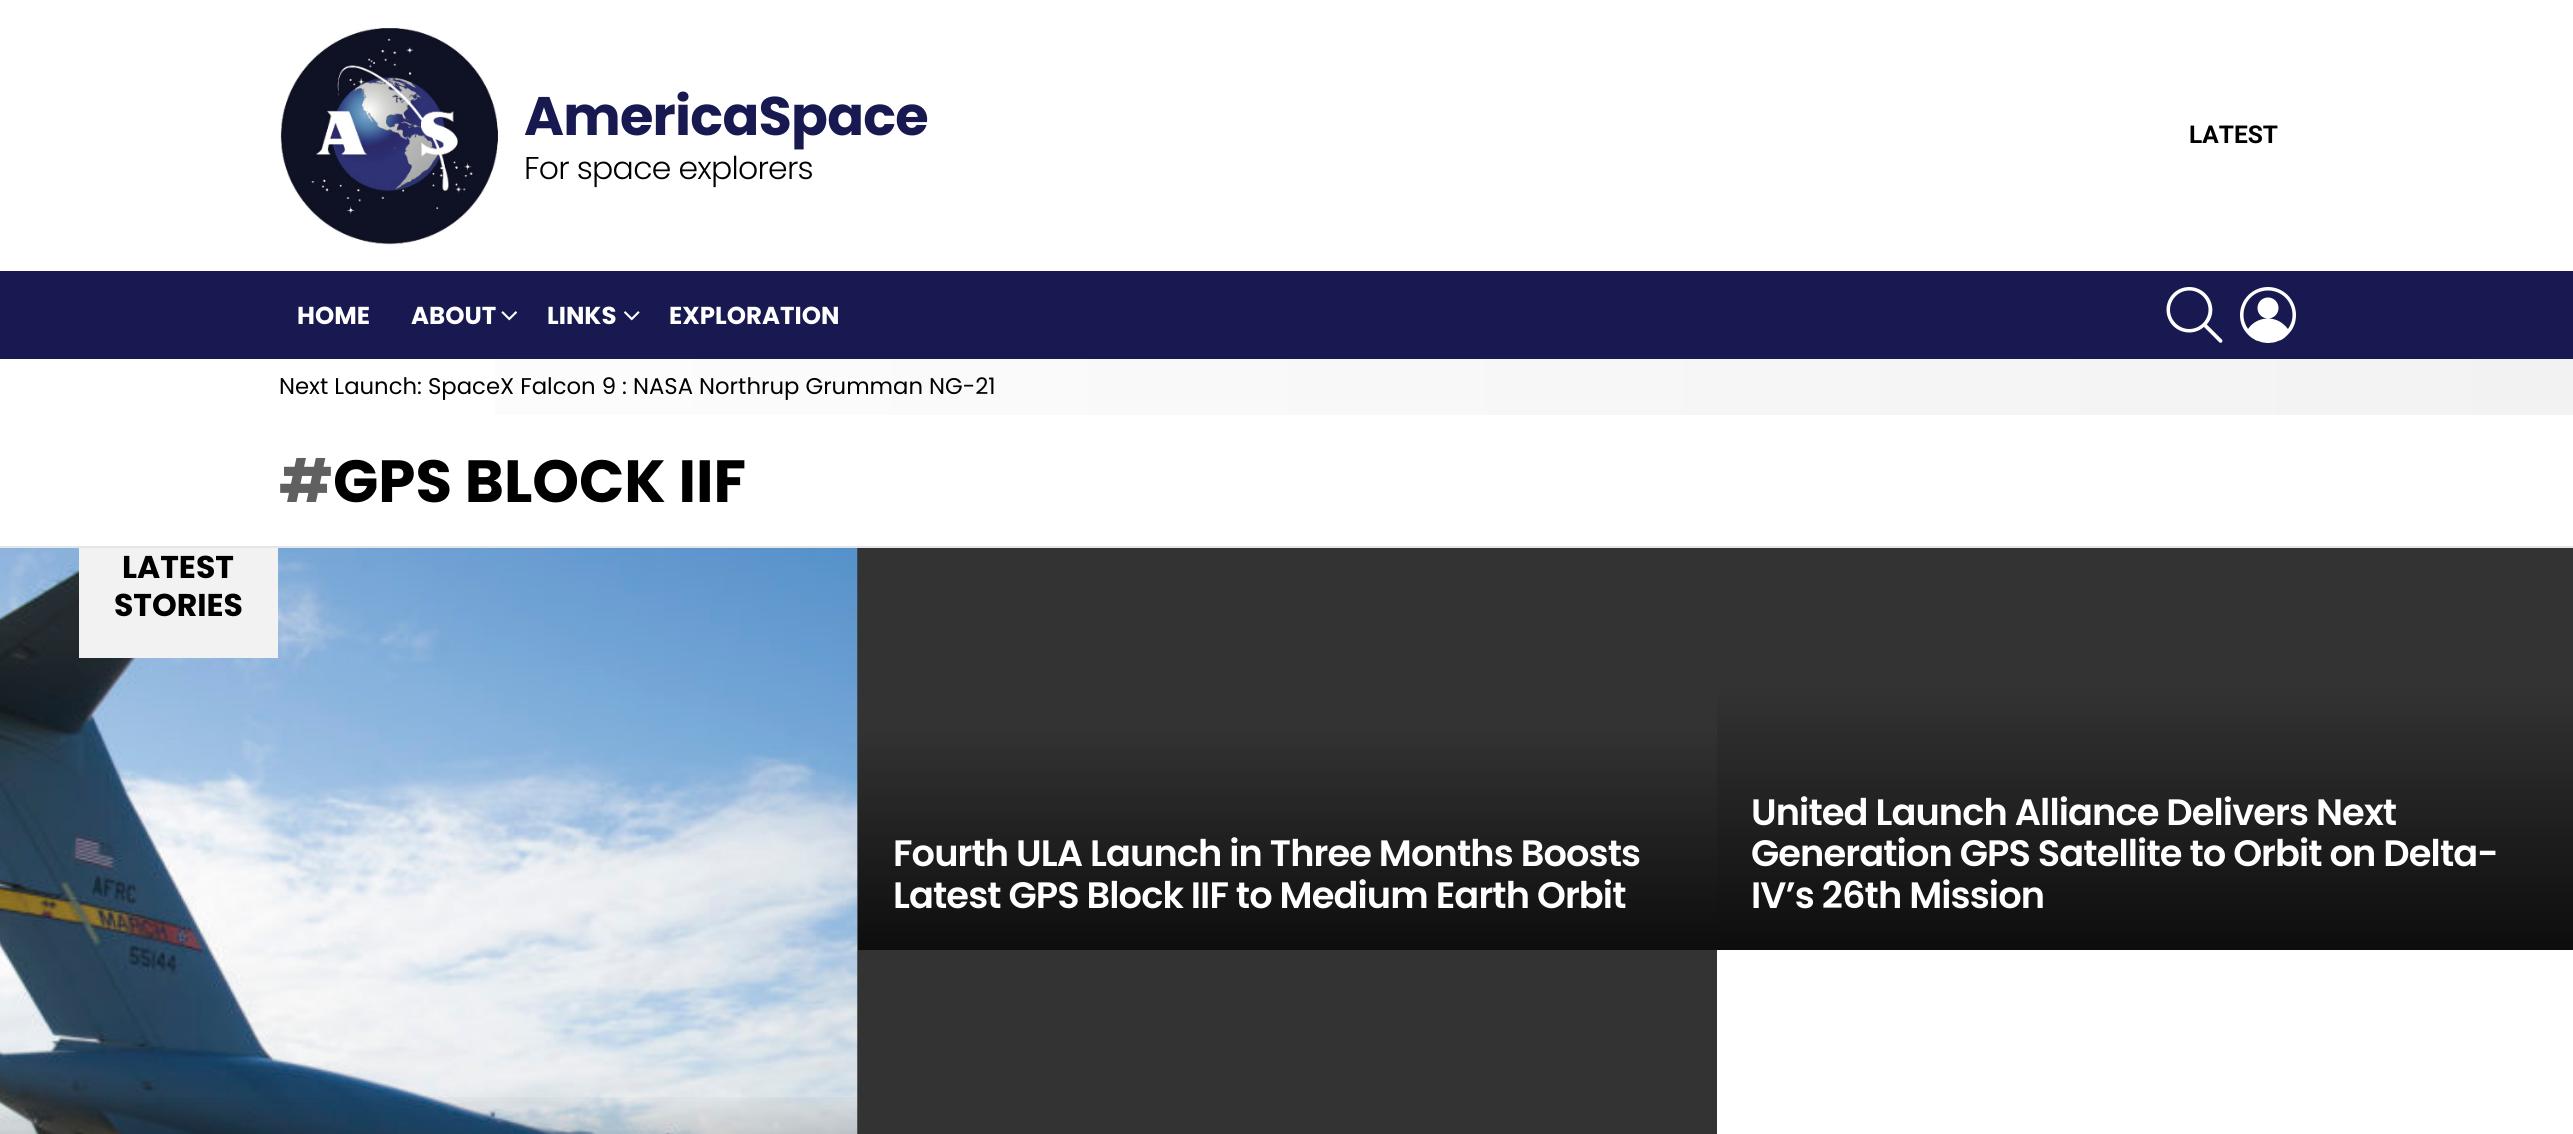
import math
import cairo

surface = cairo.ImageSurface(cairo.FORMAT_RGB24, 2573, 1134)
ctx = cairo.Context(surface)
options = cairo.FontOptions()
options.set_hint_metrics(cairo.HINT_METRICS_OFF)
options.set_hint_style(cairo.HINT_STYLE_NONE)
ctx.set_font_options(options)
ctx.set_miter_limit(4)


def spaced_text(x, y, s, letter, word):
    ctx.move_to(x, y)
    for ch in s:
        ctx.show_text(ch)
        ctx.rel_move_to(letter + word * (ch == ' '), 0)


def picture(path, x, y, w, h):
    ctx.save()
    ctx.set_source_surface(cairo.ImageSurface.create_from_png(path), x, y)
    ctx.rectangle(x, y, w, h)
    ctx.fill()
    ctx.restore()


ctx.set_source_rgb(1, 1, 1)
ctx.paint()
picture("img1.png", 280, 28, 218, 217)
ctx.select_font_face("Poppins", cairo.FONT_SLANT_NORMAL, cairo.FONT_WEIGHT_BOLD)
ctx.set_font_size(54.25)
ctx.set_source_rgb(0.09, 0.098, 0.314)
spaced_text(524, 135, "AmericaSpace", -0.75, 0)
ctx.select_font_face("Poppins Light")
ctx.set_font_size(31.5)
ctx.set_source_rgb(0, 0, 0)
spaced_text(524, 179, "For space explorers", -0.75, 0)
ctx.select_font_face("Roboto", cairo.FONT_SLANT_NORMAL, cairo.FONT_WEIGHT_BOLD)
ctx.set_font_size(24.5)
ctx.move_to(2189, 143)
ctx.show_text("LATEST")
ctx.set_source_rgb(0.09, 0.098, 0.314)
ctx.rectangle(0, 271, 2573, 88)
ctx.fill()
ctx.select_font_face("Poppins", cairo.FONT_SLANT_NORMAL, cairo.FONT_WEIGHT_BOLD)
ctx.set_source_rgb(1, 1, 1)
ctx.move_to(297, 324)
ctx.show_text("HOME")
ctx.move_to(411, 324)
ctx.show_text("ABOUT")
picture("img2.png", 501, 311, 16, 10)
ctx.move_to(547, 324)
ctx.show_text("LINKS")
picture("img3.png", 624, 311, 16, 10)
ctx.move_to(669, 324)
ctx.show_text("EXPLORATION")
picture("img4.png", 2166, 287, 57, 56)
picture("img5.png", 2240, 287, 56, 56)
gradient = cairo.LinearGradient(0, 387, 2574, 387)
gradient.add_color_stop_rgba(0, 1, 1, 1, 1)
gradient.add_color_stop_rgba(1, 0.949, 0.949, 0.949, 1)
ctx.set_source(gradient)
ctx.rectangle(495, 359, 2078, 56)
ctx.fill()
ctx.select_font_face("Poppins")
ctx.set_font_size(22.75)
ctx.set_source_rgb(0, 0, 0)
ctx.move_to(279, 394)
ctx.show_text("Next Launch: SpaceX Falcon 9 : NASA Northrup Grumman NG-21")
ctx.select_font_face("Poppins", cairo.FONT_SLANT_NORMAL, cairo.FONT_WEIGHT_BOLD)
ctx.set_font_size(59.5)
ctx.set_source_rgb(0.376, 0.376, 0.376)
ctx.move_to(279, 502)
ctx.show_text("#")
ctx.set_source_rgb(0, 0, 0)
ctx.move_to(333, 502)
ctx.show_text("GPS BLOCK IIF")
ctx.set_source_rgb(0.902, 0.902, 0.902)
ctx.rectangle(0, 546, 2573, 2)
ctx.fill()
ctx.set_source_rgb(0.2, 0.2, 0.2)
ctx.rectangle(857, 548, 1, 586)
ctx.fill()
picture("img6.png", 0, 548, 858, 586)
ctx.set_source_rgb(0.949, 0.949, 0.949)
ctx.rectangle(79, 548, 199, 110)
ctx.fill()
ctx.set_font_size(31.5)
ctx.set_source_rgb(0, 0, 0)
ctx.move_to(122, 578)
ctx.show_text("LATEST")
ctx.move_to(114, 616)
ctx.show_text("STORIES")
gradient = cairo.LinearGradient(429, 1089, 429, 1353)
gradient.add_color_stop_rgba(0, 0, 0, 0, 0)
gradient.add_color_stop_rgba(1, 0, 0, 0, 0.75)
ctx.set_source(gradient)
ctx.rectangle(0, 1097, 858, 37)
ctx.fill()
ctx.set_source_rgb(0.2, 0.2, 0.2)
ctx.rectangle(858, 548, 859, 180)
ctx.fill()
gradient = cairo.LinearGradient(1287, 728, 1287, 950)
gradient.add_color_stop_rgba(0, 0.2, 0.2, 0.2, 1)
gradient.add_color_stop_rgba(1, 0.051, 0.051, 0.051, 1)
ctx.set_source(gradient)
ctx.rectangle(858, 728, 859, 222)
ctx.fill()
ctx.select_font_face("Poppins SemiBold")
ctx.set_font_size(36.75)
ctx.set_source_rgb(1, 1, 1)
spaced_text(893, 866, "Fourth ULA Launch in Three Months Boosts", -0.9, 0)
spaced_text(893, 908, "Latest GPS Block IIF to Medium Earth Orbit", -0.9, 0)
ctx.set_source_rgb(0.2, 0.2, 0.2)
ctx.rectangle(1717, 548, 856, 138)
ctx.fill()
gradient = cairo.LinearGradient(2146, 686, 2146, 950)
gradient.add_color_stop_rgba(0, 0.2, 0.2, 0.2, 1)
gradient.add_color_stop_rgba(1, 0.051, 0.051, 0.051, 1)
ctx.set_source(gradient)
ctx.rectangle(1717, 686, 856, 264)
ctx.fill()
ctx.set_source_rgb(1, 1, 1)
spaced_text(1751, 825, "United Launch Alliance Delivers Next", -0.9, 0)
spaced_text(1751, 866, "Generation GPS Satellite to Orbit on Delta-", -0.9, 0)
spaced_text(1751, 908, "IV’s 26th Mission", -0.9, 0)
ctx.set_source_rgb(0.2, 0.2, 0.2)
ctx.rectangle(858, 950, 859, 184)
ctx.fill()
surface.write_to_png("page.png")
